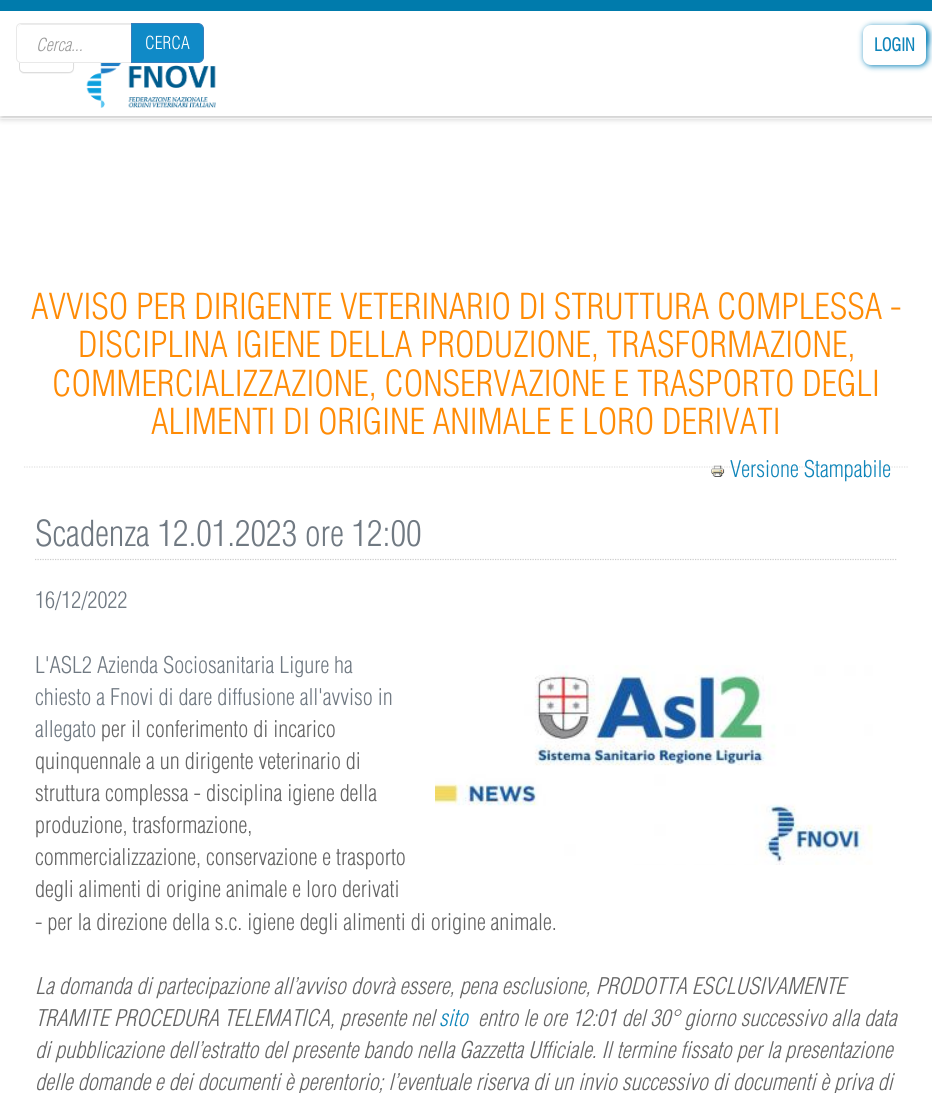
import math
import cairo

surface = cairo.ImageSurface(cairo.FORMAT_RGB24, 932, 1093)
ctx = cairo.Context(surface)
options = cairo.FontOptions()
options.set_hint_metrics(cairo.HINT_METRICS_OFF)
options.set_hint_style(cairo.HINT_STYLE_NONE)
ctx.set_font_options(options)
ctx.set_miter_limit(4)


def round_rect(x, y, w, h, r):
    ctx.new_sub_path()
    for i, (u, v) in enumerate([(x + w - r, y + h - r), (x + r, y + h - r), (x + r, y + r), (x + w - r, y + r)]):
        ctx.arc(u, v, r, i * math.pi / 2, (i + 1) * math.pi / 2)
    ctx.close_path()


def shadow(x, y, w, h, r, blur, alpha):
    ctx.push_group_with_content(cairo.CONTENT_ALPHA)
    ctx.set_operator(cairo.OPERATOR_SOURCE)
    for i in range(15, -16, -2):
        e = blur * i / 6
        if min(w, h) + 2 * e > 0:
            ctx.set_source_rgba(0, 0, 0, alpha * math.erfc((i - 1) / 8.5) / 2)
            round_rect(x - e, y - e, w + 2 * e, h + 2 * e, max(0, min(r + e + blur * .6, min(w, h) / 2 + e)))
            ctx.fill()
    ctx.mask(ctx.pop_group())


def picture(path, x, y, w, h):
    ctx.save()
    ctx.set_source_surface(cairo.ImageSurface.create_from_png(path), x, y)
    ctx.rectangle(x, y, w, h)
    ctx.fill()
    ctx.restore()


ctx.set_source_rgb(1, 1, 1)
ctx.paint()
ctx.save()
ctx.rectangle(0, 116, 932, 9)
ctx.clip()
ctx.set_source_rgb(0.8, 0.8, 0.8)
shadow(1, 3, 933, 116, 0, 3, 1)
ctx.restore()
ctx.set_source_rgb(0, 0.482, 0.675)
ctx.rectangle(0, 0, 932, 11)
ctx.fill()
ctx.set_source_rgb(0.957, 0.957, 0.957)
ctx.new_path()
ctx.move_to(19, 69)
ctx.curve_to(19, 71, 21, 73, 23, 74)
ctx.line_to(54, 74)
ctx.curve_to(78, 74, 74, 76, 74, 52)
ctx.line_to(74, 34)
ctx.line_to(74, 68)
ctx.curve_to(74, 70, 72, 72, 69, 72)
ctx.line_to(24, 72)
ctx.curve_to(22, 72, 20, 71, 19, 69)
ctx.close_path()
ctx.fill()
round_rect(19.5, 30.5, 54, 42, 4.5)
ctx.set_source_rgb(0.867, 0.867, 0.867)
ctx.set_line_width(1)
ctx.stroke()
picture("img1.png", 86, 63, 130, 45)
ctx.set_source_rgb(0.957, 0.957, 0.957)
ctx.rectangle(0, 118, 932, 1)
ctx.fill()
ctx.set_source_rgb(1, 1, 1)
ctx.new_path()
ctx.move_to(21, 23)
ctx.line_to(133, 23)
ctx.line_to(133, 63)
ctx.line_to(21, 63)
ctx.curve_to(18, 63, 16, 61, 16, 58)
ctx.line_to(16, 28)
ctx.curve_to(16, 25, 18, 23, 21, 23)
ctx.close_path()
ctx.fill()
ctx.set_source_rgb(0.925, 0.925, 0.925)
ctx.new_path()
ctx.move_to(21, 25)
ctx.line_to(131, 25)
ctx.line_to(131, 24)
ctx.line_to(22, 24)
ctx.curve_to(20, 24, 18, 26, 18, 28)
ctx.line_to(18, 29)
ctx.curve_to(18, 27, 19, 25, 21, 25)
ctx.close_path()
ctx.fill()
ctx.new_path()
ctx.move_to(21, 23.5)
ctx.line_to(132.5, 23.5)
ctx.line_to(132.5, 62.5)
ctx.line_to(21, 62.5)
ctx.curve_to(18.5, 62.5, 16.5, 60.5, 16.5, 58)
ctx.line_to(16.5, 28)
ctx.curve_to(16.5, 25.5, 18.5, 23.5, 21, 23.5)
ctx.close_path()
ctx.set_source_rgb(0.914, 0.914, 0.914)
ctx.stroke()
ctx.select_font_face("Helvetica Light", cairo.FONT_SLANT_ITALIC)
ctx.set_font_size(17.5)
ctx.set_source_rgb(0.6, 0.6, 0.6)
ctx.move_to(36, 51)
ctx.show_text("Cerca...")
ctx.set_source_rgb(0.063, 0.541, 0.78)
ctx.new_path()
ctx.move_to(131.5, 23.5)
ctx.line_to(198, 23.5)
ctx.curve_to(201, 23.5, 203.5, 26, 203.5, 29)
ctx.line_to(203.5, 57)
ctx.curve_to(203.5, 60, 201, 62.5, 198, 62.5)
ctx.line_to(131.5, 62.5)
ctx.close_path()
ctx.fill_preserve()
ctx.set_source_rgb(0.208, 0.494, 0.741)
ctx.stroke()
ctx.select_font_face("Helvetica Light")
ctx.set_source_rgb(1, 1, 1)
ctx.move_to(145, 49)
ctx.show_text("CERCA")
ctx.set_source_rgb(0.059, 0.522, 0.729)
shadow(905, 26, 23, 23, 8, 3, 1)
shadow(864, 26, 64, 40, 8, 3, 1)
ctx.set_source_rgb(1, 1, 1)
round_rect(863, 25, 63, 40, 8)
ctx.fill()
ctx.select_font_face("Helvetica", cairo.FONT_SLANT_NORMAL, cairo.FONT_WEIGHT_BOLD)
ctx.set_source_rgb(0.059, 0.522, 0.729)
ctx.move_to(874, 51)
ctx.show_text("LOGIN")
ctx.new_path()
ctx.move_to(24, 467)
ctx.line_to(909, 467)
ctx.set_source_rgb(0.886, 0.886, 0.886)
ctx.set_line_width(1.2)
ctx.set_dash([1.25, 1.25])
ctx.stroke()
ctx.select_font_face("Helvetica Light")
ctx.set_font_size(35)
ctx.set_source_rgb(1, 0.545, 0.02)
ctx.move_to(31, 319)
ctx.show_text("AVVISO PER DIRIGENTE VETERINARIO DI STRUTTURA COMPLESSA -")
ctx.move_to(78, 357)
ctx.show_text("DISCIPLINA IGIENE DELLA PRODUZIONE, TRASFORMAZIONE,")
ctx.move_to(52, 396)
ctx.show_text("COMMERCIALIZZAZIONE, CONSERVAZIONE E TRASPORTO DEGLI")
ctx.move_to(151, 434)
ctx.show_text("ALIMENTI DI ORIGINE ANIMALE E LORO DERIVATI")
picture("img2.png", 711, 465, 14, 12)
ctx.set_font_size(22.5)
ctx.set_source_rgb(0.059, 0.522, 0.729)
ctx.move_to(730, 477)
ctx.show_text("Versione Stampabile")
ctx.new_path()
ctx.move_to(35, 559.5)
ctx.line_to(897.5, 559.5)
ctx.set_source_rgb(0.8, 0.8, 0.8)
ctx.stroke()
ctx.set_font_size(35)
ctx.set_source_rgb(0.439, 0.475, 0.51)
ctx.move_to(35, 546)
ctx.show_text("Scadenza 12.01.2023 ore 12:00")
ctx.set_font_size(22.5)
ctx.move_to(35, 608)
ctx.show_text("16/12/2022")
ctx.move_to(35, 673)
ctx.show_text("L'ASL2 Azienda Sociosanitaria Ligure ha")
ctx.move_to(35, 705)
ctx.show_text("chiesto a Fnovi di dare diffusione all'avviso in")
ctx.move_to(35, 737)
ctx.show_text("allegato")
ctx.set_source_rgb(0.392, 0.392, 0.392)
ctx.move_to(101, 737)
ctx.show_text("per il conferimento di incarico")
ctx.move_to(35, 769)
ctx.show_text("quinquennale a un dirigente veterinario di")
ctx.move_to(35, 801)
ctx.show_text("struttura complessa - disciplina igiene della")
ctx.move_to(35, 833)
ctx.show_text("produzione, trasformazione,")
ctx.move_to(35, 865)
ctx.show_text("commercializzazione, conservazione e trasporto")
ctx.move_to(35, 897)
ctx.show_text("degli alimenti di origine animale e loro derivati")
ctx.move_to(35, 930)
ctx.show_text("- per la direzione della s.c. igiene degli alimenti di origine animale.")
ctx.select_font_face("Helvetica Light", cairo.FONT_SLANT_ITALIC)
ctx.move_to(35, 994)
ctx.show_text("La domanda di partecipazione all’avviso dovrà essere, pena esclusione, PRODOTTA ESCLUSIVAMENTE")
ctx.move_to(35, 1026)
ctx.show_text("TRAMITE PROCEDURA TELEMATICA, presente nel")
ctx.set_source_rgb(0.059, 0.522, 0.729)
ctx.move_to(439, 1026)
ctx.show_text("sito")
ctx.set_source_rgb(0.392, 0.392, 0.392)
ctx.move_to(478, 1026)
ctx.show_text("entro le ore 12:01 del 30° giorno successivo alla data")
ctx.move_to(35, 1058)
ctx.show_text("di pubblicazione dell’estratto del presente bando nella Gazzetta Ufficiale. Il termine fissato per la presentazione")
ctx.move_to(35, 1090)
ctx.show_text("delle domande e dei documenti è perentorio; l’eventuale riserva di un invio successivo di documenti è priva di")
picture("img3.png", 435, 665, 438, 200)
surface.write_to_png("page.png")
